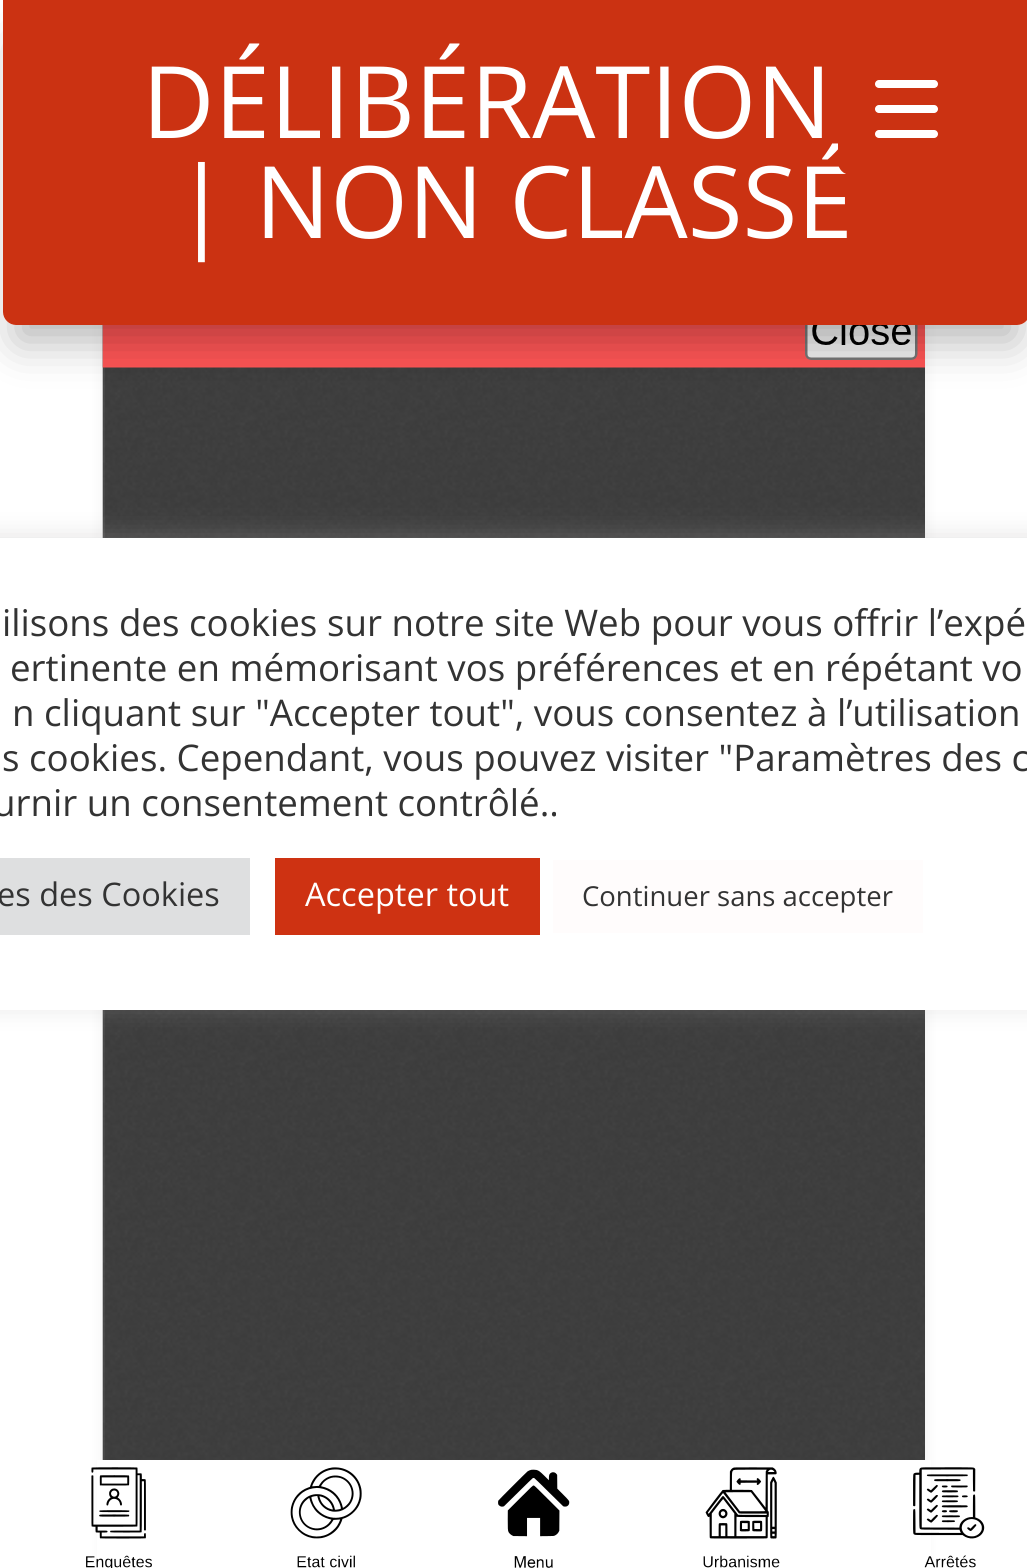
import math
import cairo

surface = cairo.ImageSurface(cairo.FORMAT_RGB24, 1027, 1568)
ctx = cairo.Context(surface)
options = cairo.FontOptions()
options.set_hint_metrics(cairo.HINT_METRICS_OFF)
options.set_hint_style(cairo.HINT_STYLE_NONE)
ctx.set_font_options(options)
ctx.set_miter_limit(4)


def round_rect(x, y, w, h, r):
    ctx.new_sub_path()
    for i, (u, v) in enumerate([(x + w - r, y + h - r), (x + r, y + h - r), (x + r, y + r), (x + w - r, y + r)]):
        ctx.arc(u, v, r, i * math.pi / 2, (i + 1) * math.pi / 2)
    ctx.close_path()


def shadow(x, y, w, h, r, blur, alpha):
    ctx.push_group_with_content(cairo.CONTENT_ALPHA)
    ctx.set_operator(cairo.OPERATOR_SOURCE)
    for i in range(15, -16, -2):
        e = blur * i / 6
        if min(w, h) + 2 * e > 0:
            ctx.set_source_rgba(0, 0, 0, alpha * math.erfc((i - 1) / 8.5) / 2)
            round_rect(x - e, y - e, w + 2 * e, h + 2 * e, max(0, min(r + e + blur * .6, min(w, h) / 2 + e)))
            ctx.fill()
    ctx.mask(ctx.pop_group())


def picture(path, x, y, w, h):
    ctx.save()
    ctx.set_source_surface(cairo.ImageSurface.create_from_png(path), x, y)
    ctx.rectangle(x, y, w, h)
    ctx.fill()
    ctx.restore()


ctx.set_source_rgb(1, 1, 1)
ctx.paint()
ctx.set_source_rgb(0.933, 0.933, 0.933)
shadow(103, 120, 822, 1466, 0, 6, 1)
ctx.set_source_rgb(1, 1, 1)
ctx.rectangle(97, 312, 834, 13)
ctx.fill()
picture("img6.png", 102, 325, 823, 1135)
ctx.save()
ctx.set_fill_rule(cairo.FILL_RULE_EVEN_ODD)
ctx.new_path()
ctx.move_to(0, 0)
ctx.line_to(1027, 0)
ctx.line_to(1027, 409)
ctx.line_to(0, 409)
ctx.close_path()
ctx.move_to(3, 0)
ctx.line_to(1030, 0)
ctx.line_to(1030, 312)
ctx.curve_to(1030, 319, 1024, 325, 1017, 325)
ctx.line_to(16, 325)
ctx.curve_to(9, 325, 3, 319, 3, 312)
ctx.close_path()
ctx.clip()
ctx.set_source_rgb(0, 0, 0)
shadow(18, 45, 997, 295, 0, 22.5, 0.3)
ctx.restore()
ctx.set_source_rgb(0.796, 0.196, 0.071)
ctx.new_path()
ctx.move_to(3, 0)
ctx.line_to(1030, 0)
ctx.line_to(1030, 312)
ctx.curve_to(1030, 319, 1024, 325, 1017, 325)
ctx.line_to(16, 325)
ctx.curve_to(9, 325, 3, 319, 3, 312)
ctx.close_path()
ctx.fill()
ctx.select_font_face("Open Sans")
ctx.set_font_size(100)
ctx.set_source_rgb(1, 1, 1)
ctx.move_to(142, 138)
ctx.show_text("DÉLIBÉRATION")
ctx.move_to(174, 238)
ctx.show_text("| NON CLASSÉ")
ctx.rectangle(97, 1460, 834, 108)
ctx.fill()
picture("img1.png", 86, 1467, 66, 101)
picture("img2.png", 290, 1467, 72, 101)
picture("img3.png", 498, 1469, 72, 99)
picture("img4.png", 703, 1467, 77, 101)
picture("img5.png", 913, 1467, 72, 101)
ctx.set_source_rgb(0.796, 0.196, 0.071)
round_rect(838, 38, 137, 137, 13)
ctx.fill()
ctx.set_source_rgb(1, 1, 1)
round_rect(875, 105, 63, 8, 4)
ctx.fill()
round_rect(875, 80, 63, 8, 4)
ctx.fill()
round_rect(875, 130, 63, 8, 4)
ctx.fill()
ctx.set_source_rgb(0.675, 0.671, 0.671)
shadow(-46, 535, 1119, 473, 8, 12.5, 0.3)
ctx.set_source_rgb(1, 1, 1)
ctx.rectangle(0, 538, 1027, 472)
ctx.fill()
ctx.set_font_size(36.7)
ctx.set_source_rgb(0.2, 0.2, 0.2)
ctx.move_to(2, 636)
ctx.show_text("ilisons des cookies sur notre site Web pour vous offrir l’expé")
ctx.move_to(10, 681)
ctx.show_text("ertinente en mémorisant vos préférences et en répétant vo")
ctx.move_to(12, 726)
ctx.show_text("n cliquant sur \"Accepter tout\", vous consentez à l’utilisation")
ctx.move_to(2, 771)
ctx.show_text("s cookies. Cependant, vous pouvez visiter \"Paramètres des c")
ctx.move_to(-7, 816)
ctx.show_text("urnir un consentement contrôlé..")
ctx.set_source_rgb(0.871, 0.875, 0.878)
ctx.rectangle(0, 858, 250, 77)
ctx.fill()
ctx.set_font_size(32.5)
ctx.set_source_rgb(0.2, 0.2, 0.2)
ctx.move_to(-3, 906)
ctx.show_text("es des Cookies")
ctx.set_source_rgb(0.808, 0.196, 0.071)
ctx.rectangle(275, 858, 265, 77)
ctx.fill()
ctx.set_source_rgb(1, 1, 1)
ctx.move_to(305, 906)
ctx.show_text("Accepter tout")
ctx.set_source_rgb(1, 0.988, 0.988)
ctx.rectangle(553, 860, 370, 73)
ctx.fill()
ctx.set_font_size(27.5)
ctx.set_source_rgb(0.2, 0.2, 0.2)
ctx.move_to(582, 906)
ctx.show_text("Continuer sans accepter")
surface.write_to_png("page.png")
